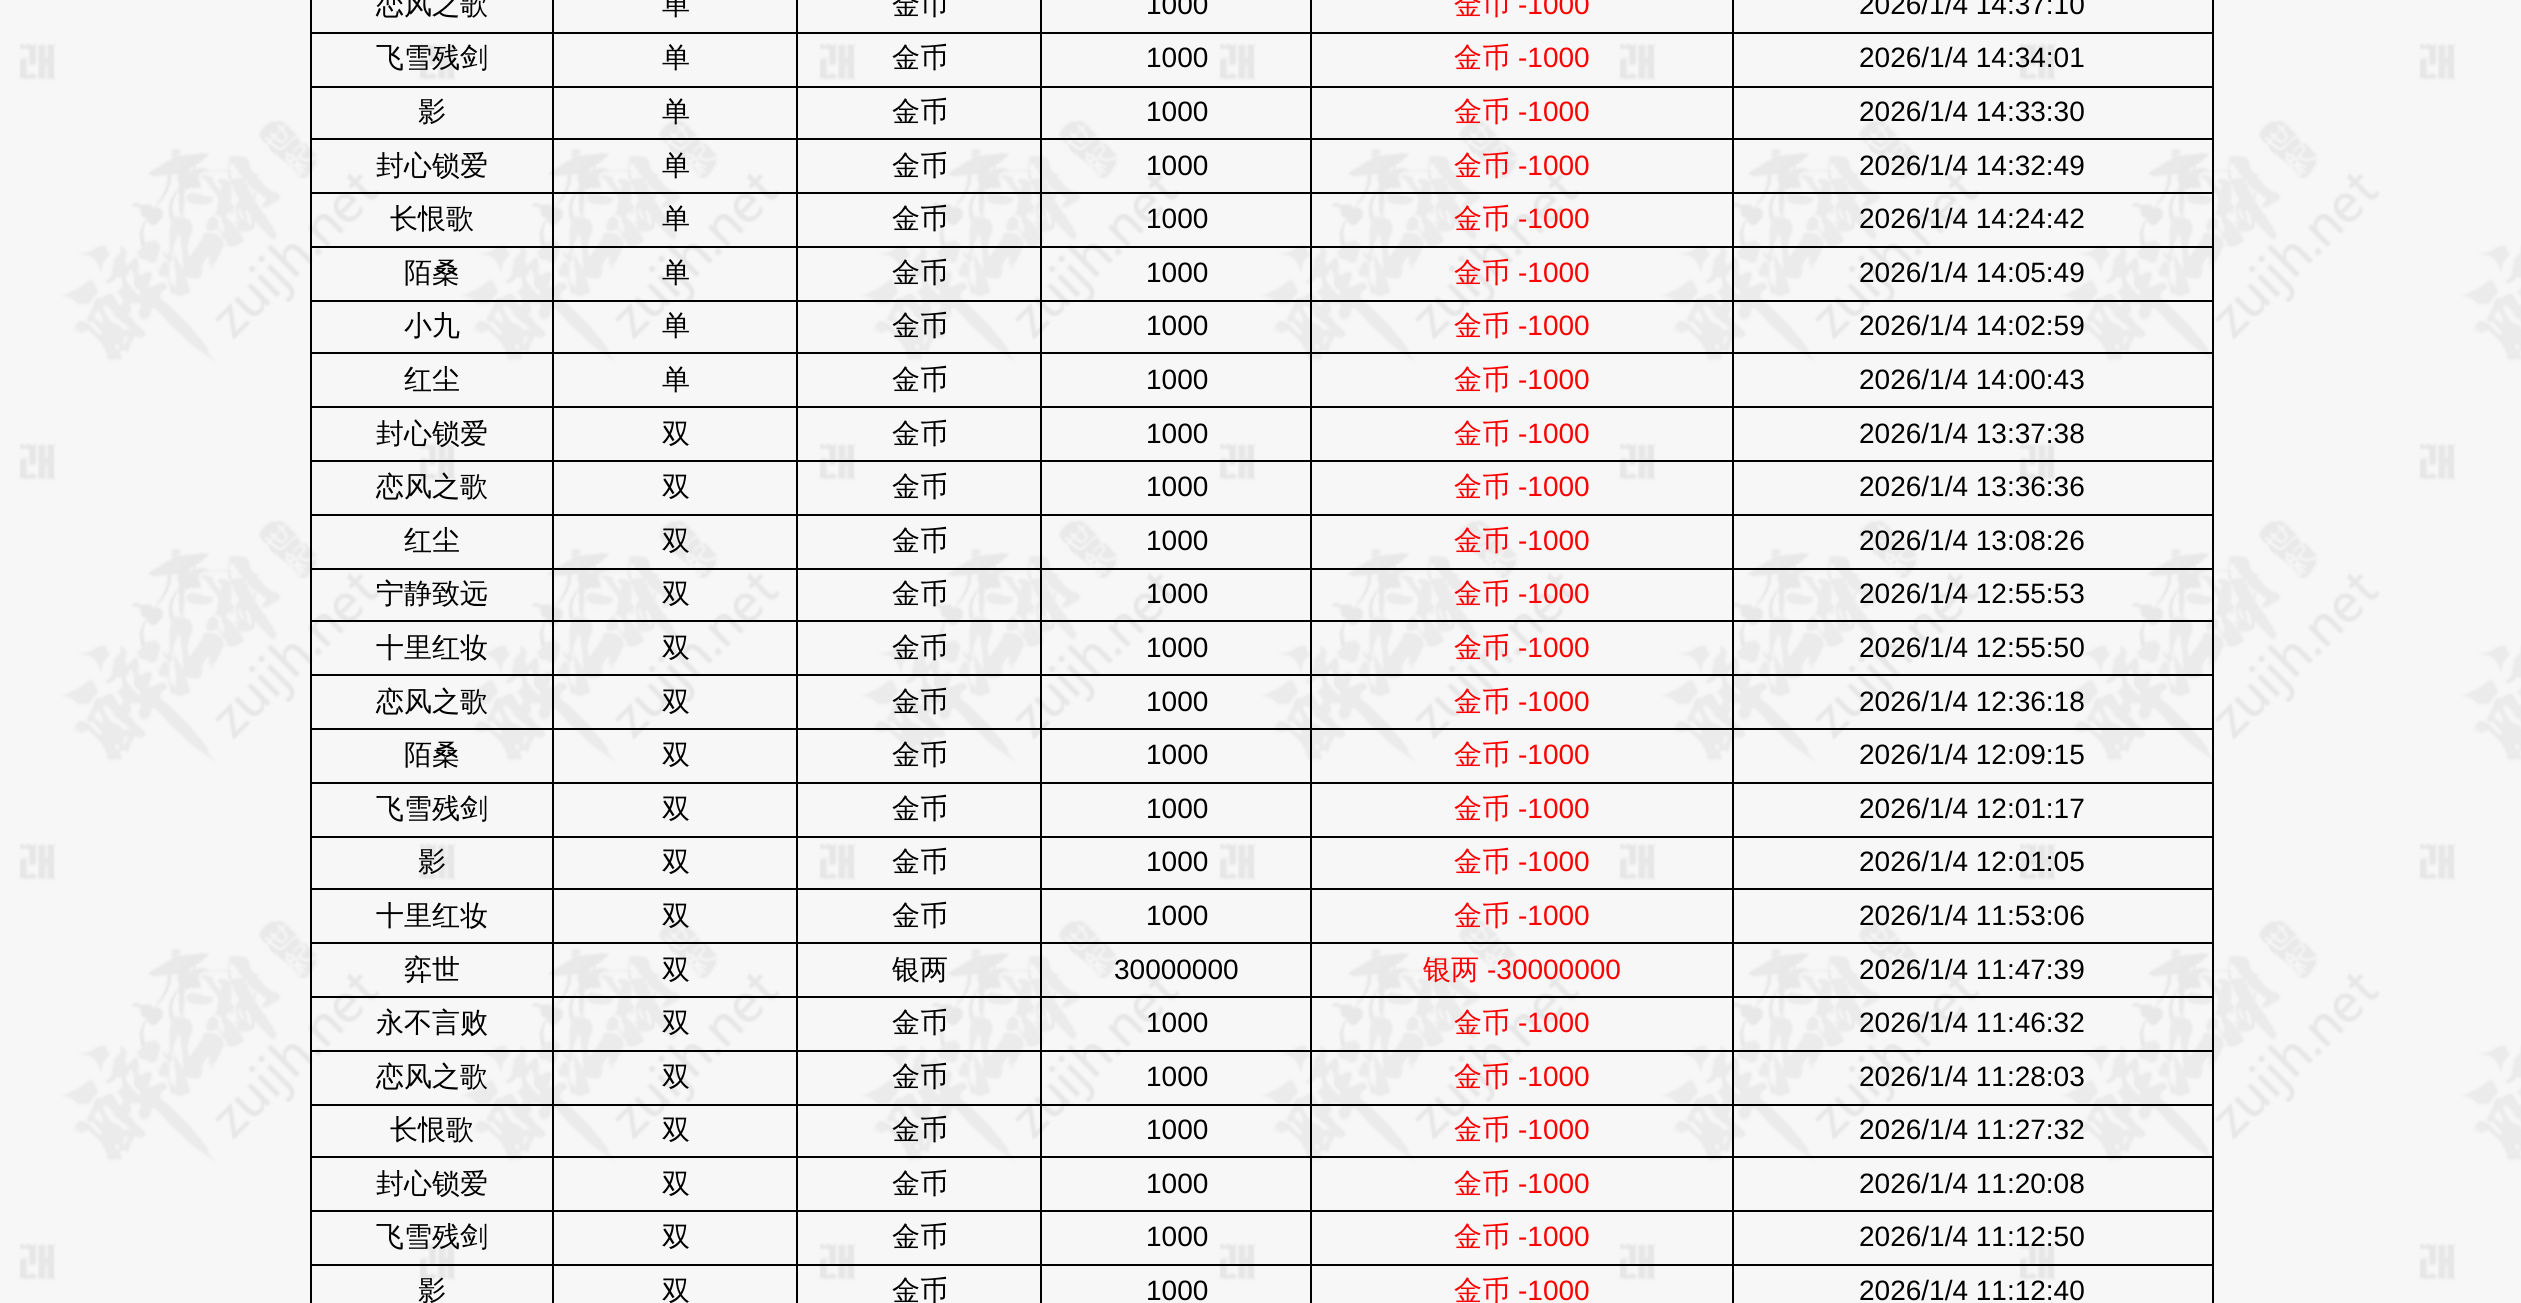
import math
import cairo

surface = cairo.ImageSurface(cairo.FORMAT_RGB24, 2521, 1303)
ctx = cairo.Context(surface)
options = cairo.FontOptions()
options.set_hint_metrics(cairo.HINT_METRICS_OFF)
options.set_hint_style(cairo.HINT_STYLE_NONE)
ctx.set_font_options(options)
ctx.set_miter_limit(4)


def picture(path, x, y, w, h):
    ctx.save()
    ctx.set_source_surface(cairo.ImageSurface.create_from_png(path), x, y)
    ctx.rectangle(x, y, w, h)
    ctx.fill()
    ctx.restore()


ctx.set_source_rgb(1, 1, 1)
ctx.paint()
picture("img1.png", 0, 0, 2521, 1303)
ctx.set_source_rgb(0, 0, 0)
ctx.rectangle(2212, 0, 2, 1303)
ctx.fill()
ctx.rectangle(310, 0, 2, 1303)
ctx.fill()
ctx.select_font_face("WenQuanYi Zen Hei Medium")
ctx.set_font_size(28)
ctx.move_to(376, 14)
ctx.show_text("恋风之歌")
ctx.rectangle(1732, 32, 482, 2)
ctx.fill()
ctx.rectangle(1732, 86, 482, 2)
ctx.fill()
ctx.rectangle(1732, 138, 482, 2)
ctx.fill()
ctx.rectangle(1732, 192, 482, 2)
ctx.fill()
ctx.rectangle(1732, 246, 482, 2)
ctx.fill()
ctx.rectangle(1732, 300, 482, 2)
ctx.fill()
ctx.rectangle(1732, 352, 482, 2)
ctx.fill()
ctx.rectangle(1732, 406, 482, 2)
ctx.fill()
ctx.rectangle(1732, 460, 482, 2)
ctx.fill()
ctx.rectangle(1732, 514, 482, 2)
ctx.fill()
ctx.rectangle(1732, 568, 482, 2)
ctx.fill()
ctx.rectangle(1732, 620, 482, 2)
ctx.fill()
ctx.rectangle(1732, 674, 482, 2)
ctx.fill()
ctx.rectangle(1732, 728, 482, 2)
ctx.fill()
ctx.rectangle(1732, 782, 482, 2)
ctx.fill()
ctx.rectangle(1732, 836, 482, 2)
ctx.fill()
ctx.rectangle(1732, 888, 482, 2)
ctx.fill()
ctx.rectangle(1732, 942, 482, 2)
ctx.fill()
ctx.rectangle(1732, 996, 482, 2)
ctx.fill()
ctx.rectangle(1732, 1050, 482, 2)
ctx.fill()
ctx.rectangle(1732, 1104, 482, 2)
ctx.fill()
ctx.rectangle(1732, 1156, 482, 2)
ctx.fill()
ctx.rectangle(1732, 1210, 482, 2)
ctx.fill()
ctx.rectangle(1732, 1264, 482, 2)
ctx.fill()
ctx.rectangle(1732, 1264, 2, 39)
ctx.fill()
ctx.rectangle(1310, 1264, 424, 2)
ctx.fill()
ctx.rectangle(1732, 1210, 2, 56)
ctx.fill()
ctx.rectangle(1310, 1210, 424, 2)
ctx.fill()
ctx.rectangle(1732, 1156, 2, 56)
ctx.fill()
ctx.rectangle(1310, 1156, 424, 2)
ctx.fill()
ctx.rectangle(1732, 1104, 2, 54)
ctx.fill()
ctx.rectangle(1310, 1104, 424, 2)
ctx.fill()
ctx.rectangle(1732, 1050, 2, 56)
ctx.fill()
ctx.rectangle(1310, 1050, 424, 2)
ctx.fill()
ctx.rectangle(1732, 996, 2, 56)
ctx.fill()
ctx.rectangle(1310, 996, 424, 2)
ctx.fill()
ctx.rectangle(1732, 942, 2, 56)
ctx.fill()
ctx.rectangle(1310, 942, 424, 2)
ctx.fill()
ctx.rectangle(1732, 888, 2, 56)
ctx.fill()
ctx.rectangle(1310, 888, 424, 2)
ctx.fill()
ctx.rectangle(1732, 836, 2, 54)
ctx.fill()
ctx.rectangle(1310, 836, 424, 2)
ctx.fill()
ctx.rectangle(1732, 782, 2, 56)
ctx.fill()
ctx.rectangle(1310, 782, 424, 2)
ctx.fill()
ctx.rectangle(1732, 728, 2, 56)
ctx.fill()
ctx.rectangle(1310, 728, 424, 2)
ctx.fill()
ctx.rectangle(1732, 674, 2, 56)
ctx.fill()
ctx.rectangle(1310, 674, 424, 2)
ctx.fill()
ctx.rectangle(1732, 620, 2, 56)
ctx.fill()
ctx.rectangle(1310, 620, 424, 2)
ctx.fill()
ctx.rectangle(1732, 568, 2, 54)
ctx.fill()
ctx.rectangle(1310, 568, 424, 2)
ctx.fill()
ctx.rectangle(1732, 514, 2, 56)
ctx.fill()
ctx.rectangle(1310, 514, 424, 2)
ctx.fill()
ctx.rectangle(1732, 460, 2, 56)
ctx.fill()
ctx.rectangle(1310, 460, 424, 2)
ctx.fill()
ctx.rectangle(1732, 406, 2, 56)
ctx.fill()
ctx.rectangle(1310, 406, 424, 2)
ctx.fill()
ctx.rectangle(1732, 352, 2, 56)
ctx.fill()
ctx.rectangle(1310, 352, 424, 2)
ctx.fill()
ctx.rectangle(1732, 300, 2, 54)
ctx.fill()
ctx.rectangle(1310, 300, 424, 2)
ctx.fill()
ctx.rectangle(1732, 246, 2, 56)
ctx.fill()
ctx.rectangle(1310, 246, 424, 2)
ctx.fill()
ctx.rectangle(1732, 192, 2, 56)
ctx.fill()
ctx.rectangle(1310, 192, 424, 2)
ctx.fill()
ctx.rectangle(1732, 138, 2, 56)
ctx.fill()
ctx.rectangle(1310, 138, 424, 2)
ctx.fill()
ctx.rectangle(1732, 86, 2, 54)
ctx.fill()
ctx.rectangle(1310, 86, 424, 2)
ctx.fill()
ctx.rectangle(1732, 32, 2, 56)
ctx.fill()
ctx.rectangle(1310, 32, 424, 2)
ctx.fill()
ctx.rectangle(1310, 1264, 2, 39)
ctx.fill()
ctx.rectangle(1040, 1264, 272, 2)
ctx.fill()
ctx.rectangle(1310, 1210, 2, 56)
ctx.fill()
ctx.rectangle(1040, 1210, 272, 2)
ctx.fill()
ctx.rectangle(1310, 1156, 2, 56)
ctx.fill()
ctx.rectangle(1040, 1156, 272, 2)
ctx.fill()
ctx.rectangle(1310, 1104, 2, 54)
ctx.fill()
ctx.rectangle(1040, 1104, 272, 2)
ctx.fill()
ctx.rectangle(1310, 1050, 2, 56)
ctx.fill()
ctx.rectangle(1040, 1050, 272, 2)
ctx.fill()
ctx.rectangle(1310, 996, 2, 56)
ctx.fill()
ctx.rectangle(1040, 996, 272, 2)
ctx.fill()
ctx.rectangle(1310, 942, 2, 56)
ctx.fill()
ctx.rectangle(1040, 942, 272, 2)
ctx.fill()
ctx.rectangle(1310, 888, 2, 56)
ctx.fill()
ctx.rectangle(1040, 888, 272, 2)
ctx.fill()
ctx.rectangle(1310, 836, 2, 54)
ctx.fill()
ctx.rectangle(1040, 836, 272, 2)
ctx.fill()
ctx.rectangle(1310, 782, 2, 56)
ctx.fill()
ctx.rectangle(1040, 782, 272, 2)
ctx.fill()
ctx.rectangle(1310, 728, 2, 56)
ctx.fill()
ctx.rectangle(1040, 728, 272, 2)
ctx.fill()
ctx.rectangle(1310, 674, 2, 56)
ctx.fill()
ctx.rectangle(1040, 674, 272, 2)
ctx.fill()
ctx.rectangle(1310, 620, 2, 56)
ctx.fill()
ctx.rectangle(1040, 620, 272, 2)
ctx.fill()
ctx.rectangle(1310, 568, 2, 54)
ctx.fill()
ctx.rectangle(1040, 568, 272, 2)
ctx.fill()
ctx.rectangle(1310, 514, 2, 56)
ctx.fill()
ctx.rectangle(1040, 514, 272, 2)
ctx.fill()
ctx.rectangle(1310, 460, 2, 56)
ctx.fill()
ctx.rectangle(1040, 460, 272, 2)
ctx.fill()
ctx.rectangle(1310, 406, 2, 56)
ctx.fill()
ctx.rectangle(1040, 406, 272, 2)
ctx.fill()
ctx.rectangle(1310, 352, 2, 56)
ctx.fill()
ctx.rectangle(1040, 352, 272, 2)
ctx.fill()
ctx.rectangle(1310, 300, 2, 54)
ctx.fill()
ctx.rectangle(1040, 300, 272, 2)
ctx.fill()
ctx.rectangle(1310, 246, 2, 56)
ctx.fill()
ctx.rectangle(1040, 246, 272, 2)
ctx.fill()
ctx.rectangle(1310, 192, 2, 56)
ctx.fill()
ctx.rectangle(1040, 192, 272, 2)
ctx.fill()
ctx.rectangle(1310, 138, 2, 56)
ctx.fill()
ctx.rectangle(1040, 138, 272, 2)
ctx.fill()
ctx.rectangle(1310, 86, 2, 54)
ctx.fill()
ctx.rectangle(1040, 86, 272, 2)
ctx.fill()
ctx.rectangle(1310, 32, 2, 56)
ctx.fill()
ctx.rectangle(1040, 32, 272, 2)
ctx.fill()
ctx.rectangle(1040, 1264, 2, 39)
ctx.fill()
ctx.rectangle(796, 1264, 246, 2)
ctx.fill()
ctx.rectangle(1040, 1210, 2, 56)
ctx.fill()
ctx.rectangle(796, 1210, 246, 2)
ctx.fill()
ctx.rectangle(1040, 1156, 2, 56)
ctx.fill()
ctx.rectangle(796, 1156, 246, 2)
ctx.fill()
ctx.rectangle(1040, 1104, 2, 54)
ctx.fill()
ctx.rectangle(796, 1104, 246, 2)
ctx.fill()
ctx.rectangle(1040, 1050, 2, 56)
ctx.fill()
ctx.rectangle(796, 1050, 246, 2)
ctx.fill()
ctx.rectangle(1040, 996, 2, 56)
ctx.fill()
ctx.rectangle(796, 996, 246, 2)
ctx.fill()
ctx.rectangle(1040, 942, 2, 56)
ctx.fill()
ctx.rectangle(796, 942, 246, 2)
ctx.fill()
ctx.rectangle(1040, 888, 2, 56)
ctx.fill()
ctx.rectangle(796, 888, 246, 2)
ctx.fill()
ctx.rectangle(1040, 836, 2, 54)
ctx.fill()
ctx.rectangle(796, 836, 246, 2)
ctx.fill()
ctx.rectangle(1040, 782, 2, 56)
ctx.fill()
ctx.rectangle(796, 782, 246, 2)
ctx.fill()
ctx.rectangle(1040, 728, 2, 56)
ctx.fill()
ctx.rectangle(796, 728, 246, 2)
ctx.fill()
ctx.rectangle(1040, 674, 2, 56)
ctx.fill()
ctx.rectangle(796, 674, 246, 2)
ctx.fill()
ctx.rectangle(1040, 620, 2, 56)
ctx.fill()
ctx.rectangle(796, 620, 246, 2)
ctx.fill()
ctx.rectangle(1040, 568, 2, 54)
ctx.fill()
ctx.rectangle(796, 568, 246, 2)
ctx.fill()
ctx.rectangle(1040, 514, 2, 56)
ctx.fill()
ctx.rectangle(796, 514, 246, 2)
ctx.fill()
ctx.rectangle(1040, 460, 2, 56)
ctx.fill()
ctx.rectangle(796, 460, 246, 2)
ctx.fill()
ctx.rectangle(1040, 406, 2, 56)
ctx.fill()
ctx.rectangle(796, 406, 246, 2)
ctx.fill()
ctx.rectangle(1040, 352, 2, 56)
ctx.fill()
ctx.rectangle(796, 352, 246, 2)
ctx.fill()
ctx.rectangle(1040, 300, 2, 54)
ctx.fill()
ctx.rectangle(796, 300, 246, 2)
ctx.fill()
ctx.rectangle(1040, 246, 2, 56)
ctx.fill()
ctx.rectangle(796, 246, 246, 2)
ctx.fill()
ctx.rectangle(1040, 192, 2, 56)
ctx.fill()
ctx.rectangle(796, 192, 246, 2)
ctx.fill()
ctx.rectangle(1040, 138, 2, 56)
ctx.fill()
ctx.rectangle(796, 138, 246, 2)
ctx.fill()
ctx.rectangle(1040, 86, 2, 54)
ctx.fill()
ctx.rectangle(796, 86, 246, 2)
ctx.fill()
ctx.rectangle(1040, 32, 2, 56)
ctx.fill()
ctx.rectangle(796, 32, 246, 2)
ctx.fill()
ctx.rectangle(796, 1264, 2, 39)
ctx.fill()
ctx.rectangle(552, 1264, 246, 2)
ctx.fill()
ctx.rectangle(796, 1210, 2, 56)
ctx.fill()
ctx.rectangle(552, 1210, 246, 2)
ctx.fill()
ctx.rectangle(796, 1156, 2, 56)
ctx.fill()
ctx.rectangle(552, 1156, 246, 2)
ctx.fill()
ctx.rectangle(796, 1104, 2, 54)
ctx.fill()
ctx.rectangle(552, 1104, 246, 2)
ctx.fill()
ctx.rectangle(796, 1050, 2, 56)
ctx.fill()
ctx.rectangle(552, 1050, 246, 2)
ctx.fill()
ctx.rectangle(796, 996, 2, 56)
ctx.fill()
ctx.rectangle(552, 996, 246, 2)
ctx.fill()
ctx.rectangle(796, 942, 2, 56)
ctx.fill()
ctx.rectangle(552, 942, 246, 2)
ctx.fill()
ctx.rectangle(796, 888, 2, 56)
ctx.fill()
ctx.rectangle(552, 888, 246, 2)
ctx.fill()
ctx.rectangle(796, 836, 2, 54)
ctx.fill()
ctx.rectangle(552, 836, 246, 2)
ctx.fill()
ctx.rectangle(796, 782, 2, 56)
ctx.fill()
ctx.rectangle(552, 782, 246, 2)
ctx.fill()
ctx.rectangle(796, 728, 2, 56)
ctx.fill()
ctx.rectangle(552, 728, 246, 2)
ctx.fill()
ctx.rectangle(796, 674, 2, 56)
ctx.fill()
ctx.rectangle(552, 674, 246, 2)
ctx.fill()
ctx.rectangle(796, 620, 2, 56)
ctx.fill()
ctx.rectangle(552, 620, 246, 2)
ctx.fill()
ctx.rectangle(796, 568, 2, 54)
ctx.fill()
ctx.rectangle(552, 568, 246, 2)
ctx.fill()
ctx.rectangle(796, 514, 2, 56)
ctx.fill()
ctx.rectangle(552, 514, 246, 2)
ctx.fill()
ctx.rectangle(796, 460, 2, 56)
ctx.fill()
ctx.rectangle(552, 460, 246, 2)
ctx.fill()
ctx.rectangle(796, 406, 2, 56)
ctx.fill()
ctx.rectangle(552, 406, 246, 2)
ctx.fill()
ctx.rectangle(796, 352, 2, 56)
ctx.fill()
ctx.rectangle(552, 352, 246, 2)
ctx.fill()
ctx.rectangle(796, 300, 2, 54)
ctx.fill()
ctx.rectangle(552, 300, 246, 2)
ctx.fill()
ctx.rectangle(796, 246, 2, 56)
ctx.fill()
ctx.rectangle(552, 246, 246, 2)
ctx.fill()
ctx.rectangle(796, 192, 2, 56)
ctx.fill()
ctx.rectangle(552, 192, 246, 2)
ctx.fill()
ctx.rectangle(796, 138, 2, 56)
ctx.fill()
ctx.rectangle(552, 138, 246, 2)
ctx.fill()
ctx.rectangle(796, 86, 2, 54)
ctx.fill()
ctx.rectangle(552, 86, 246, 2)
ctx.fill()
ctx.rectangle(796, 32, 2, 56)
ctx.fill()
ctx.rectangle(552, 32, 246, 2)
ctx.fill()
ctx.rectangle(552, 1264, 2, 39)
ctx.fill()
ctx.rectangle(310, 1264, 244, 2)
ctx.fill()
ctx.rectangle(552, 1210, 2, 56)
ctx.fill()
ctx.rectangle(310, 1210, 244, 2)
ctx.fill()
ctx.rectangle(552, 1156, 2, 56)
ctx.fill()
ctx.rectangle(310, 1156, 244, 2)
ctx.fill()
ctx.rectangle(552, 1104, 2, 54)
ctx.fill()
ctx.rectangle(310, 1104, 244, 2)
ctx.fill()
ctx.rectangle(552, 1050, 2, 56)
ctx.fill()
ctx.rectangle(310, 1050, 244, 2)
ctx.fill()
ctx.rectangle(552, 996, 2, 56)
ctx.fill()
ctx.rectangle(310, 996, 244, 2)
ctx.fill()
ctx.rectangle(552, 942, 2, 56)
ctx.fill()
ctx.rectangle(310, 942, 244, 2)
ctx.fill()
ctx.rectangle(552, 888, 2, 56)
ctx.fill()
ctx.rectangle(310, 888, 244, 2)
ctx.fill()
ctx.rectangle(552, 836, 2, 54)
ctx.fill()
ctx.rectangle(310, 836, 244, 2)
ctx.fill()
ctx.rectangle(552, 782, 2, 56)
ctx.fill()
ctx.rectangle(310, 782, 244, 2)
ctx.fill()
ctx.rectangle(552, 728, 2, 56)
ctx.fill()
ctx.rectangle(310, 728, 244, 2)
ctx.fill()
ctx.rectangle(552, 674, 2, 56)
ctx.fill()
ctx.rectangle(310, 674, 244, 2)
ctx.fill()
ctx.rectangle(552, 620, 2, 56)
ctx.fill()
ctx.rectangle(310, 620, 244, 2)
ctx.fill()
ctx.rectangle(552, 568, 2, 54)
ctx.fill()
ctx.rectangle(310, 568, 244, 2)
ctx.fill()
ctx.rectangle(552, 514, 2, 56)
ctx.fill()
ctx.rectangle(310, 514, 244, 2)
ctx.fill()
ctx.rectangle(552, 460, 2, 56)
ctx.fill()
ctx.rectangle(310, 460, 244, 2)
ctx.fill()
ctx.rectangle(552, 406, 2, 56)
ctx.fill()
ctx.rectangle(310, 406, 244, 2)
ctx.fill()
ctx.rectangle(552, 352, 2, 56)
ctx.fill()
ctx.rectangle(310, 352, 244, 2)
ctx.fill()
ctx.rectangle(552, 300, 2, 54)
ctx.fill()
ctx.rectangle(310, 300, 244, 2)
ctx.fill()
ctx.rectangle(552, 246, 2, 56)
ctx.fill()
ctx.rectangle(310, 246, 244, 2)
ctx.fill()
ctx.rectangle(552, 192, 2, 56)
ctx.fill()
ctx.rectangle(310, 192, 244, 2)
ctx.fill()
ctx.rectangle(552, 138, 2, 56)
ctx.fill()
ctx.rectangle(310, 138, 244, 2)
ctx.fill()
ctx.rectangle(552, 86, 2, 54)
ctx.fill()
ctx.rectangle(310, 86, 244, 2)
ctx.fill()
ctx.rectangle(552, 32, 2, 56)
ctx.fill()
ctx.rectangle(310, 32, 244, 2)
ctx.fill()
ctx.rectangle(552, 0, 2, 34)
ctx.fill()
ctx.move_to(662, 14)
ctx.show_text("单")
ctx.rectangle(796, 0, 2, 34)
ctx.fill()
ctx.move_to(892, 14)
ctx.show_text("金币")
ctx.rectangle(1040, 0, 2, 34)
ctx.fill()
ctx.select_font_face("Liberation Sans")
ctx.move_to(1146, 14)
ctx.show_text("1000")
ctx.rectangle(1310, 0, 2, 34)
ctx.fill()
ctx.select_font_face("WenQuanYi Zen Hei Medium")
ctx.set_source_rgb(1, 0, 0)
ctx.move_to(1454, 14)
ctx.show_text("金币")
ctx.select_font_face("Liberation Sans")
ctx.move_to(1518, 14)
ctx.show_text("-1000")
ctx.set_source_rgb(0, 0, 0)
ctx.rectangle(1732, 0, 2, 34)
ctx.fill()
ctx.move_to(1859, 14)
ctx.show_text("2026/1/4 14:37:10")
ctx.select_font_face("WenQuanYi Zen Hei Medium")
ctx.move_to(376, 67)
ctx.show_text("飞雪残剑")
ctx.move_to(662, 67)
ctx.show_text("单")
ctx.move_to(892, 67)
ctx.show_text("金币")
ctx.select_font_face("Liberation Sans")
ctx.move_to(1146, 67)
ctx.show_text("1000")
ctx.select_font_face("WenQuanYi Zen Hei Medium")
ctx.set_source_rgb(1, 0, 0)
ctx.move_to(1454, 67)
ctx.show_text("金币")
ctx.select_font_face("Liberation Sans")
ctx.move_to(1518, 67)
ctx.show_text("-1000")
ctx.set_source_rgb(0, 0, 0)
ctx.move_to(1859, 67)
ctx.show_text("2026/1/4 14:34:01")
ctx.select_font_face("WenQuanYi Zen Hei Medium")
ctx.move_to(418, 121)
ctx.show_text("影")
ctx.move_to(662, 121)
ctx.show_text("单")
ctx.move_to(892, 121)
ctx.show_text("金币")
ctx.select_font_face("Liberation Sans")
ctx.move_to(1146, 121)
ctx.show_text("1000")
ctx.select_font_face("WenQuanYi Zen Hei Medium")
ctx.set_source_rgb(1, 0, 0)
ctx.move_to(1454, 121)
ctx.show_text("金币")
ctx.select_font_face("Liberation Sans")
ctx.move_to(1518, 121)
ctx.show_text("-1000")
ctx.set_source_rgb(0, 0, 0)
ctx.move_to(1859, 121)
ctx.show_text("2026/1/4 14:33:30")
ctx.select_font_face("WenQuanYi Zen Hei Medium")
ctx.move_to(376, 175)
ctx.show_text("封心锁爱")
ctx.move_to(662, 175)
ctx.show_text("单")
ctx.move_to(892, 175)
ctx.show_text("金币")
ctx.select_font_face("Liberation Sans")
ctx.move_to(1146, 175)
ctx.show_text("1000")
ctx.select_font_face("WenQuanYi Zen Hei Medium")
ctx.set_source_rgb(1, 0, 0)
ctx.move_to(1454, 175)
ctx.show_text("金币")
ctx.select_font_face("Liberation Sans")
ctx.move_to(1518, 175)
ctx.show_text("-1000")
ctx.set_source_rgb(0, 0, 0)
ctx.move_to(1859, 175)
ctx.show_text("2026/1/4 14:32:49")
ctx.select_font_face("WenQuanYi Zen Hei Medium")
ctx.move_to(390, 228)
ctx.show_text("长恨歌")
ctx.move_to(662, 228)
ctx.show_text("单")
ctx.move_to(892, 228)
ctx.show_text("金币")
ctx.select_font_face("Liberation Sans")
ctx.move_to(1146, 228)
ctx.show_text("1000")
ctx.select_font_face("WenQuanYi Zen Hei Medium")
ctx.set_source_rgb(1, 0, 0)
ctx.move_to(1454, 228)
ctx.show_text("金币")
ctx.select_font_face("Liberation Sans")
ctx.move_to(1518, 228)
ctx.show_text("-1000")
ctx.set_source_rgb(0, 0, 0)
ctx.move_to(1859, 228)
ctx.show_text("2026/1/4 14:24:42")
ctx.select_font_face("WenQuanYi Zen Hei Medium")
ctx.move_to(404, 282)
ctx.show_text("陌桑")
ctx.move_to(662, 282)
ctx.show_text("单")
ctx.move_to(892, 282)
ctx.show_text("金币")
ctx.select_font_face("Liberation Sans")
ctx.move_to(1146, 282)
ctx.show_text("1000")
ctx.select_font_face("WenQuanYi Zen Hei Medium")
ctx.set_source_rgb(1, 0, 0)
ctx.move_to(1454, 282)
ctx.show_text("金币")
ctx.select_font_face("Liberation Sans")
ctx.move_to(1518, 282)
ctx.show_text("-1000")
ctx.set_source_rgb(0, 0, 0)
ctx.move_to(1859, 282)
ctx.show_text("2026/1/4 14:05:49")
ctx.select_font_face("WenQuanYi Zen Hei Medium")
ctx.move_to(404, 335)
ctx.show_text("小九")
ctx.move_to(662, 335)
ctx.show_text("单")
ctx.move_to(892, 335)
ctx.show_text("金币")
ctx.select_font_face("Liberation Sans")
ctx.move_to(1146, 335)
ctx.show_text("1000")
ctx.select_font_face("WenQuanYi Zen Hei Medium")
ctx.set_source_rgb(1, 0, 0)
ctx.move_to(1454, 335)
ctx.show_text("金币")
ctx.select_font_face("Liberation Sans")
ctx.move_to(1518, 335)
ctx.show_text("-1000")
ctx.set_source_rgb(0, 0, 0)
ctx.move_to(1859, 335)
ctx.show_text("2026/1/4 14:02:59")
ctx.select_font_face("WenQuanYi Zen Hei Medium")
ctx.move_to(404, 389)
ctx.show_text("红尘")
ctx.move_to(662, 389)
ctx.show_text("单")
ctx.move_to(892, 389)
ctx.show_text("金币")
ctx.select_font_face("Liberation Sans")
ctx.move_to(1146, 389)
ctx.show_text("1000")
ctx.select_font_face("WenQuanYi Zen Hei Medium")
ctx.set_source_rgb(1, 0, 0)
ctx.move_to(1454, 389)
ctx.show_text("金币")
ctx.select_font_face("Liberation Sans")
ctx.move_to(1518, 389)
ctx.show_text("-1000")
ctx.set_source_rgb(0, 0, 0)
ctx.move_to(1859, 389)
ctx.show_text("2026/1/4 14:00:43")
ctx.select_font_face("WenQuanYi Zen Hei Medium")
ctx.move_to(376, 443)
ctx.show_text("封心锁爱")
ctx.move_to(662, 443)
ctx.show_text("双")
ctx.move_to(892, 443)
ctx.show_text("金币")
ctx.select_font_face("Liberation Sans")
ctx.move_to(1146, 443)
ctx.show_text("1000")
ctx.select_font_face("WenQuanYi Zen Hei Medium")
ctx.set_source_rgb(1, 0, 0)
ctx.move_to(1454, 443)
ctx.show_text("金币")
ctx.select_font_face("Liberation Sans")
ctx.move_to(1518, 443)
ctx.show_text("-1000")
ctx.set_source_rgb(0, 0, 0)
ctx.move_to(1859, 443)
ctx.show_text("2026/1/4 13:37:38")
ctx.select_font_face("WenQuanYi Zen Hei Medium")
ctx.move_to(376, 496)
ctx.show_text("恋风之歌")
ctx.move_to(662, 496)
ctx.show_text("双")
ctx.move_to(892, 496)
ctx.show_text("金币")
ctx.select_font_face("Liberation Sans")
ctx.move_to(1146, 496)
ctx.show_text("1000")
ctx.select_font_face("WenQuanYi Zen Hei Medium")
ctx.set_source_rgb(1, 0, 0)
ctx.move_to(1454, 496)
ctx.show_text("金币")
ctx.select_font_face("Liberation Sans")
ctx.move_to(1518, 496)
ctx.show_text("-1000")
ctx.set_source_rgb(0, 0, 0)
ctx.move_to(1859, 496)
ctx.show_text("2026/1/4 13:36:36")
ctx.select_font_face("WenQuanYi Zen Hei Medium")
ctx.move_to(404, 550)
ctx.show_text("红尘")
ctx.move_to(662, 550)
ctx.show_text("双")
ctx.move_to(892, 550)
ctx.show_text("金币")
ctx.select_font_face("Liberation Sans")
ctx.move_to(1146, 550)
ctx.show_text("1000")
ctx.select_font_face("WenQuanYi Zen Hei Medium")
ctx.set_source_rgb(1, 0, 0)
ctx.move_to(1454, 550)
ctx.show_text("金币")
ctx.select_font_face("Liberation Sans")
ctx.move_to(1518, 550)
ctx.show_text("-1000")
ctx.set_source_rgb(0, 0, 0)
ctx.move_to(1859, 550)
ctx.show_text("2026/1/4 13:08:26")
ctx.select_font_face("WenQuanYi Zen Hei Medium")
ctx.move_to(376, 603)
ctx.show_text("宁静致远")
ctx.move_to(662, 603)
ctx.show_text("双")
ctx.move_to(892, 603)
ctx.show_text("金币")
ctx.select_font_face("Liberation Sans")
ctx.move_to(1146, 603)
ctx.show_text("1000")
ctx.select_font_face("WenQuanYi Zen Hei Medium")
ctx.set_source_rgb(1, 0, 0)
ctx.move_to(1454, 603)
ctx.show_text("金币")
ctx.select_font_face("Liberation Sans")
ctx.move_to(1518, 603)
ctx.show_text("-1000")
ctx.set_source_rgb(0, 0, 0)
ctx.move_to(1859, 603)
ctx.show_text("2026/1/4 12:55:53")
ctx.select_font_face("WenQuanYi Zen Hei Medium")
ctx.move_to(376, 657)
ctx.show_text("十里红妆")
ctx.move_to(662, 657)
ctx.show_text("双")
ctx.move_to(892, 657)
ctx.show_text("金币")
ctx.select_font_face("Liberation Sans")
ctx.move_to(1146, 657)
ctx.show_text("1000")
ctx.select_font_face("WenQuanYi Zen Hei Medium")
ctx.set_source_rgb(1, 0, 0)
ctx.move_to(1454, 657)
ctx.show_text("金币")
ctx.select_font_face("Liberation Sans")
ctx.move_to(1518, 657)
ctx.show_text("-1000")
ctx.set_source_rgb(0, 0, 0)
ctx.move_to(1859, 657)
ctx.show_text("2026/1/4 12:55:50")
ctx.select_font_face("WenQuanYi Zen Hei Medium")
ctx.move_to(376, 711)
ctx.show_text("恋风之歌")
ctx.move_to(662, 711)
ctx.show_text("双")
ctx.move_to(892, 711)
ctx.show_text("金币")
ctx.select_font_face("Liberation Sans")
ctx.move_to(1146, 711)
ctx.show_text("1000")
ctx.select_font_face("WenQuanYi Zen Hei Medium")
ctx.set_source_rgb(1, 0, 0)
ctx.move_to(1454, 711)
ctx.show_text("金币")
ctx.select_font_face("Liberation Sans")
ctx.move_to(1518, 711)
ctx.show_text("-1000")
ctx.set_source_rgb(0, 0, 0)
ctx.move_to(1859, 711)
ctx.show_text("2026/1/4 12:36:18")
ctx.select_font_face("WenQuanYi Zen Hei Medium")
ctx.move_to(404, 764)
ctx.show_text("陌桑")
ctx.move_to(662, 764)
ctx.show_text("双")
ctx.move_to(892, 764)
ctx.show_text("金币")
ctx.select_font_face("Liberation Sans")
ctx.move_to(1146, 764)
ctx.show_text("1000")
ctx.select_font_face("WenQuanYi Zen Hei Medium")
ctx.set_source_rgb(1, 0, 0)
ctx.move_to(1454, 764)
ctx.show_text("金币")
ctx.select_font_face("Liberation Sans")
ctx.move_to(1518, 764)
ctx.show_text("-1000")
ctx.set_source_rgb(0, 0, 0)
ctx.move_to(1859, 764)
ctx.show_text("2026/1/4 12:09:15")
ctx.select_font_face("WenQuanYi Zen Hei Medium")
ctx.move_to(376, 818)
ctx.show_text("飞雪残剑")
ctx.move_to(662, 818)
ctx.show_text("双")
ctx.move_to(892, 818)
ctx.show_text("金币")
ctx.select_font_face("Liberation Sans")
ctx.move_to(1146, 818)
ctx.show_text("1000")
ctx.select_font_face("WenQuanYi Zen Hei Medium")
ctx.set_source_rgb(1, 0, 0)
ctx.move_to(1454, 818)
ctx.show_text("金币")
ctx.select_font_face("Liberation Sans")
ctx.move_to(1518, 818)
ctx.show_text("-1000")
ctx.set_source_rgb(0, 0, 0)
ctx.move_to(1859, 818)
ctx.show_text("2026/1/4 12:01:17")
ctx.select_font_face("WenQuanYi Zen Hei Medium")
ctx.move_to(418, 871)
ctx.show_text("影")
ctx.move_to(662, 871)
ctx.show_text("双")
ctx.move_to(892, 871)
ctx.show_text("金币")
ctx.select_font_face("Liberation Sans")
ctx.move_to(1146, 871)
ctx.show_text("1000")
ctx.select_font_face("WenQuanYi Zen Hei Medium")
ctx.set_source_rgb(1, 0, 0)
ctx.move_to(1454, 871)
ctx.show_text("金币")
ctx.select_font_face("Liberation Sans")
ctx.move_to(1518, 871)
ctx.show_text("-1000")
ctx.set_source_rgb(0, 0, 0)
ctx.move_to(1859, 871)
ctx.show_text("2026/1/4 12:01:05")
ctx.select_font_face("WenQuanYi Zen Hei Medium")
ctx.move_to(376, 925)
ctx.show_text("十里红妆")
ctx.move_to(662, 925)
ctx.show_text("双")
ctx.move_to(892, 925)
ctx.show_text("金币")
ctx.select_font_face("Liberation Sans")
ctx.move_to(1146, 925)
ctx.show_text("1000")
ctx.select_font_face("WenQuanYi Zen Hei Medium")
ctx.set_source_rgb(1, 0, 0)
ctx.move_to(1454, 925)
ctx.show_text("金币")
ctx.select_font_face("Liberation Sans")
ctx.move_to(1518, 925)
ctx.show_text("-1000")
ctx.set_source_rgb(0, 0, 0)
ctx.move_to(1859, 925)
ctx.show_text("2026/1/4 11:53:06")
ctx.select_font_face("WenQuanYi Zen Hei Medium")
ctx.move_to(404, 979)
ctx.show_text("弈世")
ctx.move_to(662, 979)
ctx.show_text("双")
ctx.move_to(892, 979)
ctx.show_text("银两")
ctx.select_font_face("Liberation Sans")
ctx.move_to(1114, 979)
ctx.show_text("30000000")
ctx.select_font_face("WenQuanYi Zen Hei Medium")
ctx.set_source_rgb(1, 0, 0)
ctx.move_to(1423, 979)
ctx.show_text("银两")
ctx.select_font_face("Liberation Sans")
ctx.move_to(1487, 979)
ctx.show_text("-30000000")
ctx.set_source_rgb(0, 0, 0)
ctx.move_to(1859, 979)
ctx.show_text("2026/1/4 11:47:39")
ctx.select_font_face("WenQuanYi Zen Hei Medium")
ctx.move_to(376, 1032)
ctx.show_text("永不言败")
ctx.move_to(662, 1032)
ctx.show_text("双")
ctx.move_to(892, 1032)
ctx.show_text("金币")
ctx.select_font_face("Liberation Sans")
ctx.move_to(1146, 1032)
ctx.show_text("1000")
ctx.select_font_face("WenQuanYi Zen Hei Medium")
ctx.set_source_rgb(1, 0, 0)
ctx.move_to(1454, 1032)
ctx.show_text("金币")
ctx.select_font_face("Liberation Sans")
ctx.move_to(1518, 1032)
ctx.show_text("-1000")
ctx.set_source_rgb(0, 0, 0)
ctx.move_to(1859, 1032)
ctx.show_text("2026/1/4 11:46:32")
ctx.select_font_face("WenQuanYi Zen Hei Medium")
ctx.move_to(376, 1086)
ctx.show_text("恋风之歌")
ctx.move_to(662, 1086)
ctx.show_text("双")
ctx.move_to(892, 1086)
ctx.show_text("金币")
ctx.select_font_face("Liberation Sans")
ctx.move_to(1146, 1086)
ctx.show_text("1000")
ctx.select_font_face("WenQuanYi Zen Hei Medium")
ctx.set_source_rgb(1, 0, 0)
ctx.move_to(1454, 1086)
ctx.show_text("金币")
ctx.select_font_face("Liberation Sans")
ctx.move_to(1518, 1086)
ctx.show_text("-1000")
ctx.set_source_rgb(0, 0, 0)
ctx.move_to(1859, 1086)
ctx.show_text("2026/1/4 11:28:03")
ctx.select_font_face("WenQuanYi Zen Hei Medium")
ctx.move_to(390, 1139)
ctx.show_text("长恨歌")
ctx.move_to(662, 1139)
ctx.show_text("双")
ctx.move_to(892, 1139)
ctx.show_text("金币")
ctx.select_font_face("Liberation Sans")
ctx.move_to(1146, 1139)
ctx.show_text("1000")
ctx.select_font_face("WenQuanYi Zen Hei Medium")
ctx.set_source_rgb(1, 0, 0)
ctx.move_to(1454, 1139)
ctx.show_text("金币")
ctx.select_font_face("Liberation Sans")
ctx.move_to(1518, 1139)
ctx.show_text("-1000")
ctx.set_source_rgb(0, 0, 0)
ctx.move_to(1859, 1139)
ctx.show_text("2026/1/4 11:27:32")
ctx.select_font_face("WenQuanYi Zen Hei Medium")
ctx.move_to(376, 1193)
ctx.show_text("封心锁爱")
ctx.move_to(662, 1193)
ctx.show_text("双")
ctx.move_to(892, 1193)
ctx.show_text("金币")
ctx.select_font_face("Liberation Sans")
ctx.move_to(1146, 1193)
ctx.show_text("1000")
ctx.select_font_face("WenQuanYi Zen Hei Medium")
ctx.set_source_rgb(1, 0, 0)
ctx.move_to(1454, 1193)
ctx.show_text("金币")
ctx.select_font_face("Liberation Sans")
ctx.move_to(1518, 1193)
ctx.show_text("-1000")
ctx.set_source_rgb(0, 0, 0)
ctx.move_to(1859, 1193)
ctx.show_text("2026/1/4 11:20:08")
ctx.select_font_face("WenQuanYi Zen Hei Medium")
ctx.move_to(376, 1246)
ctx.show_text("飞雪残剑")
ctx.move_to(662, 1246)
ctx.show_text("双")
ctx.move_to(892, 1246)
ctx.show_text("金币")
ctx.select_font_face("Liberation Sans")
ctx.move_to(1146, 1246)
ctx.show_text("1000")
ctx.select_font_face("WenQuanYi Zen Hei Medium")
ctx.set_source_rgb(1, 0, 0)
ctx.move_to(1454, 1246)
ctx.show_text("金币")
ctx.select_font_face("Liberation Sans")
ctx.move_to(1518, 1246)
ctx.show_text("-1000")
ctx.set_source_rgb(0, 0, 0)
ctx.move_to(1859, 1246)
ctx.show_text("2026/1/4 11:12:50")
ctx.select_font_face("WenQuanYi Zen Hei Medium")
ctx.move_to(418, 1300)
ctx.show_text("影")
ctx.move_to(662, 1300)
ctx.show_text("双")
ctx.move_to(892, 1300)
ctx.show_text("金币")
ctx.select_font_face("Liberation Sans")
ctx.move_to(1146, 1300)
ctx.show_text("1000")
ctx.select_font_face("WenQuanYi Zen Hei Medium")
ctx.set_source_rgb(1, 0, 0)
ctx.move_to(1454, 1300)
ctx.show_text("金币")
ctx.select_font_face("Liberation Sans")
ctx.move_to(1518, 1300)
ctx.show_text("-1000")
ctx.set_source_rgb(0, 0, 0)
ctx.move_to(1859, 1300)
ctx.show_text("2026/1/4 11:12:40")
surface.write_to_png("page.png")
